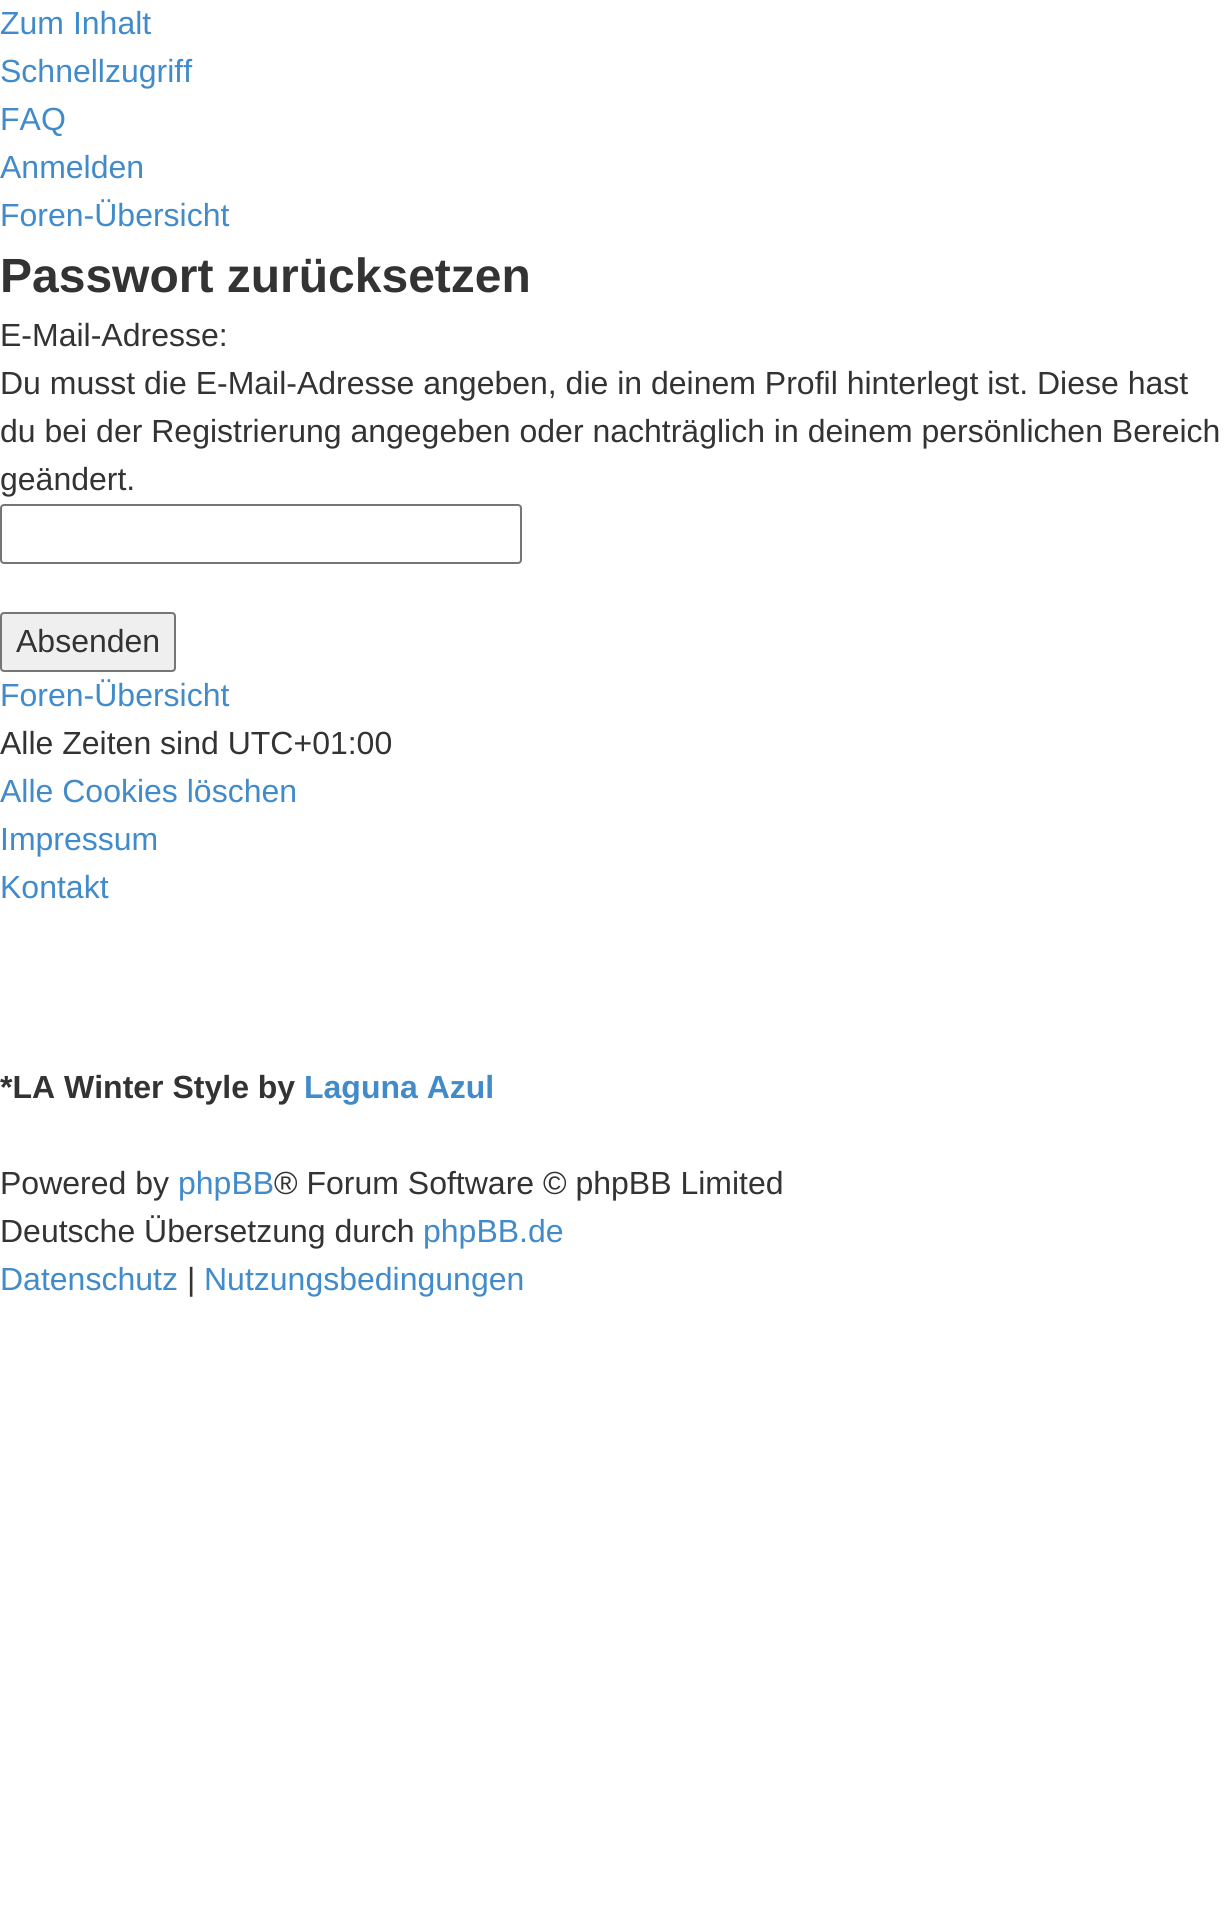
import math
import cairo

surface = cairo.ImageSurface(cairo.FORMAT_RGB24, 1230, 1920)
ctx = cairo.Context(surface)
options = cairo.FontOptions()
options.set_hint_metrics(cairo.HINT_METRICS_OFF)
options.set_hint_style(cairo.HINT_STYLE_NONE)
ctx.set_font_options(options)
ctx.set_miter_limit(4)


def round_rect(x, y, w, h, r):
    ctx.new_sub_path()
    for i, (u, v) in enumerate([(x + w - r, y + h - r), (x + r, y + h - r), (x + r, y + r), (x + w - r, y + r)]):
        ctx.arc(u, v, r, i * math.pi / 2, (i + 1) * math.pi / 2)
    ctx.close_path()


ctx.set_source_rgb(1, 1, 1)
ctx.paint()
ctx.select_font_face("Liberation Sans")
ctx.set_font_size(32)
ctx.set_source_rgb(0.259, 0.545, 0.792)
ctx.move_to(0, 34)
ctx.show_text("Zum Inhalt")
ctx.move_to(0, 82)
ctx.show_text("Schnellzugriff")
ctx.move_to(0, 130)
ctx.show_text("FAQ")
ctx.move_to(0, 178)
ctx.show_text("Anmelden")
ctx.move_to(0, 226)
ctx.show_text("Foren-Übersicht")
ctx.select_font_face("Liberation Sans", cairo.FONT_SLANT_NORMAL, cairo.FONT_WEIGHT_BOLD)
ctx.set_font_size(48)
ctx.set_source_rgb(0.2, 0.2, 0.2)
ctx.move_to(0, 292)
ctx.show_text("Passwort zurücksetzen")
ctx.select_font_face("Liberation Sans")
ctx.set_font_size(32)
ctx.move_to(0, 346)
ctx.show_text("E-Mail-Adresse:")
ctx.move_to(0, 394)
ctx.show_text("Du musst die E-Mail-Adresse angeben, die in deinem Profil hinterlegt ist. Diese hast")
ctx.move_to(0, 442)
ctx.show_text("du bei der Registrierung angegeben oder nachträglich in deinem persönlichen Bereich")
ctx.move_to(0, 490)
ctx.show_text("geändert.")
round_rect(1, 505, 520, 58, 3)
ctx.set_source_rgb(0.463, 0.463, 0.463)
ctx.stroke()
ctx.set_source_rgb(0.937, 0.937, 0.937)
round_rect(1, 613, 174, 58, 3)
ctx.fill_preserve()
ctx.set_source_rgb(0.463, 0.463, 0.463)
ctx.stroke()
ctx.set_source_rgb(0.2, 0.2, 0.2)
ctx.move_to(16, 652)
ctx.show_text("Absenden")
ctx.set_source_rgb(0.259, 0.545, 0.792)
ctx.move_to(0, 706)
ctx.show_text("Foren-Übersicht")
ctx.set_source_rgb(0.2, 0.2, 0.2)
ctx.move_to(0, 754)
ctx.show_text("Alle Zeiten sind UTC+01:00")
ctx.set_source_rgb(0.259, 0.545, 0.792)
ctx.move_to(0, 802)
ctx.show_text("Alle Cookies löschen")
ctx.move_to(0, 850)
ctx.show_text("Impressum")
ctx.move_to(0, 898)
ctx.show_text("Kontakt")
ctx.select_font_face("Liberation Sans", cairo.FONT_SLANT_NORMAL, cairo.FONT_WEIGHT_BOLD)
ctx.set_source_rgb(0.2, 0.2, 0.2)
ctx.move_to(0, 1098)
ctx.show_text("*LA Winter Style by")
ctx.set_source_rgb(0.259, 0.545, 0.792)
ctx.move_to(304, 1098)
ctx.show_text("Laguna Azul")
ctx.select_font_face("Liberation Sans")
ctx.set_source_rgb(0.2, 0.2, 0.2)
ctx.move_to(0, 1194)
ctx.show_text("Powered by")
ctx.set_source_rgb(0.259, 0.545, 0.792)
ctx.move_to(178, 1194)
ctx.show_text("phpBB")
ctx.set_source_rgb(0.2, 0.2, 0.2)
ctx.move_to(274, 1194)
ctx.show_text("® Forum Software © phpBB Limited")
ctx.move_to(0, 1242)
ctx.show_text("Deutsche Übersetzung durch")
ctx.set_source_rgb(0.259, 0.545, 0.792)
ctx.move_to(423, 1242)
ctx.show_text("phpBB.de")
ctx.move_to(0, 1290)
ctx.show_text("Datenschutz")
ctx.set_source_rgb(0.2, 0.2, 0.2)
ctx.move_to(187, 1290)
ctx.show_text("|")
ctx.set_source_rgb(0.259, 0.545, 0.792)
ctx.move_to(204, 1290)
ctx.show_text("Nutzungsbedingungen")
surface.write_to_png("page.png")
